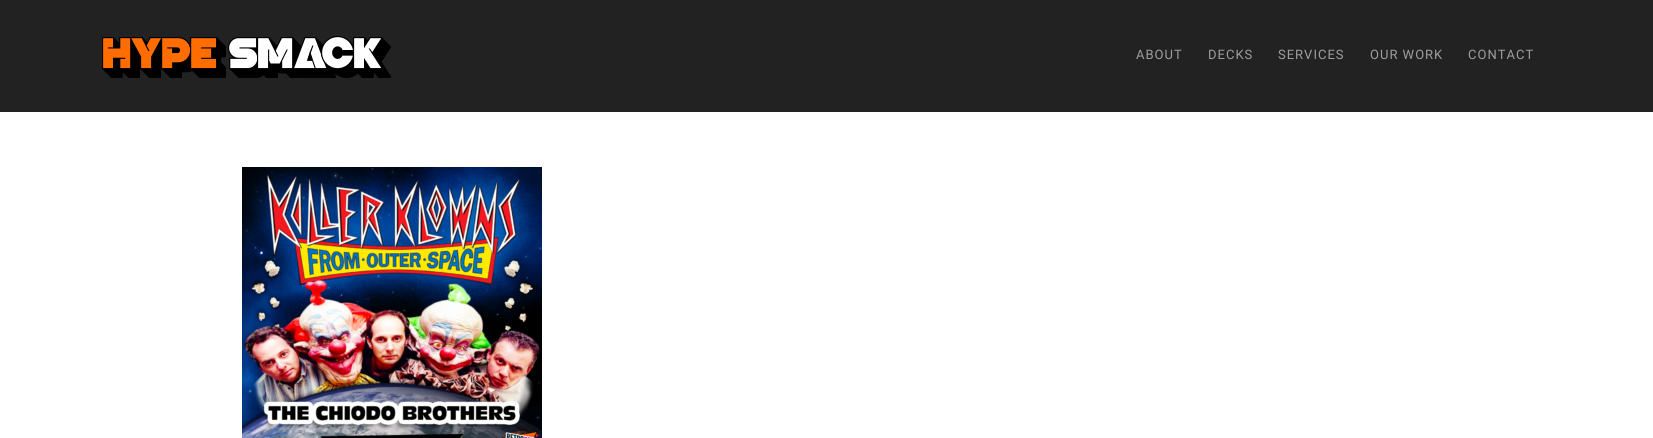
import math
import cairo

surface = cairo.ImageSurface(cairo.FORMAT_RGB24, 1653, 438)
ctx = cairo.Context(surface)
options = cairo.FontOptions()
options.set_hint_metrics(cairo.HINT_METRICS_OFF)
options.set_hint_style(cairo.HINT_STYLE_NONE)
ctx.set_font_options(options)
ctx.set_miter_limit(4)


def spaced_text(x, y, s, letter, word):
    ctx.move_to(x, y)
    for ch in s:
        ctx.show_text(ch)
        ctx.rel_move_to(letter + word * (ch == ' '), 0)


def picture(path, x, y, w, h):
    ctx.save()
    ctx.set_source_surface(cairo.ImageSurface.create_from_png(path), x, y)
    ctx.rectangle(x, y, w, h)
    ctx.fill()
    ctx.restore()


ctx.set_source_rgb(1, 1, 1)
ctx.paint()
ctx.set_source_rgb(0.133, 0.133, 0.133)
ctx.rectangle(0, 0, 1653, 112)
ctx.fill()
picture("img1.png", 102, 36, 289, 42)
ctx.select_font_face("Roboto")
ctx.set_font_size(13)
ctx.set_source_rgb(0.62, 0.62, 0.62)
spaced_text(1136, 59, "ABOUT", 1, 0)
spaced_text(1208, 59, "DECKS", 1, 0)
spaced_text(1278, 59, "SERVICES", 1, 0)
spaced_text(1370, 59, "OUR WORK", 1, 0)
spaced_text(1468, 59, "CONTACT", 1, 0)
picture("img2.png", 242, 167, 300, 271)
surface.write_to_png("page.png")
